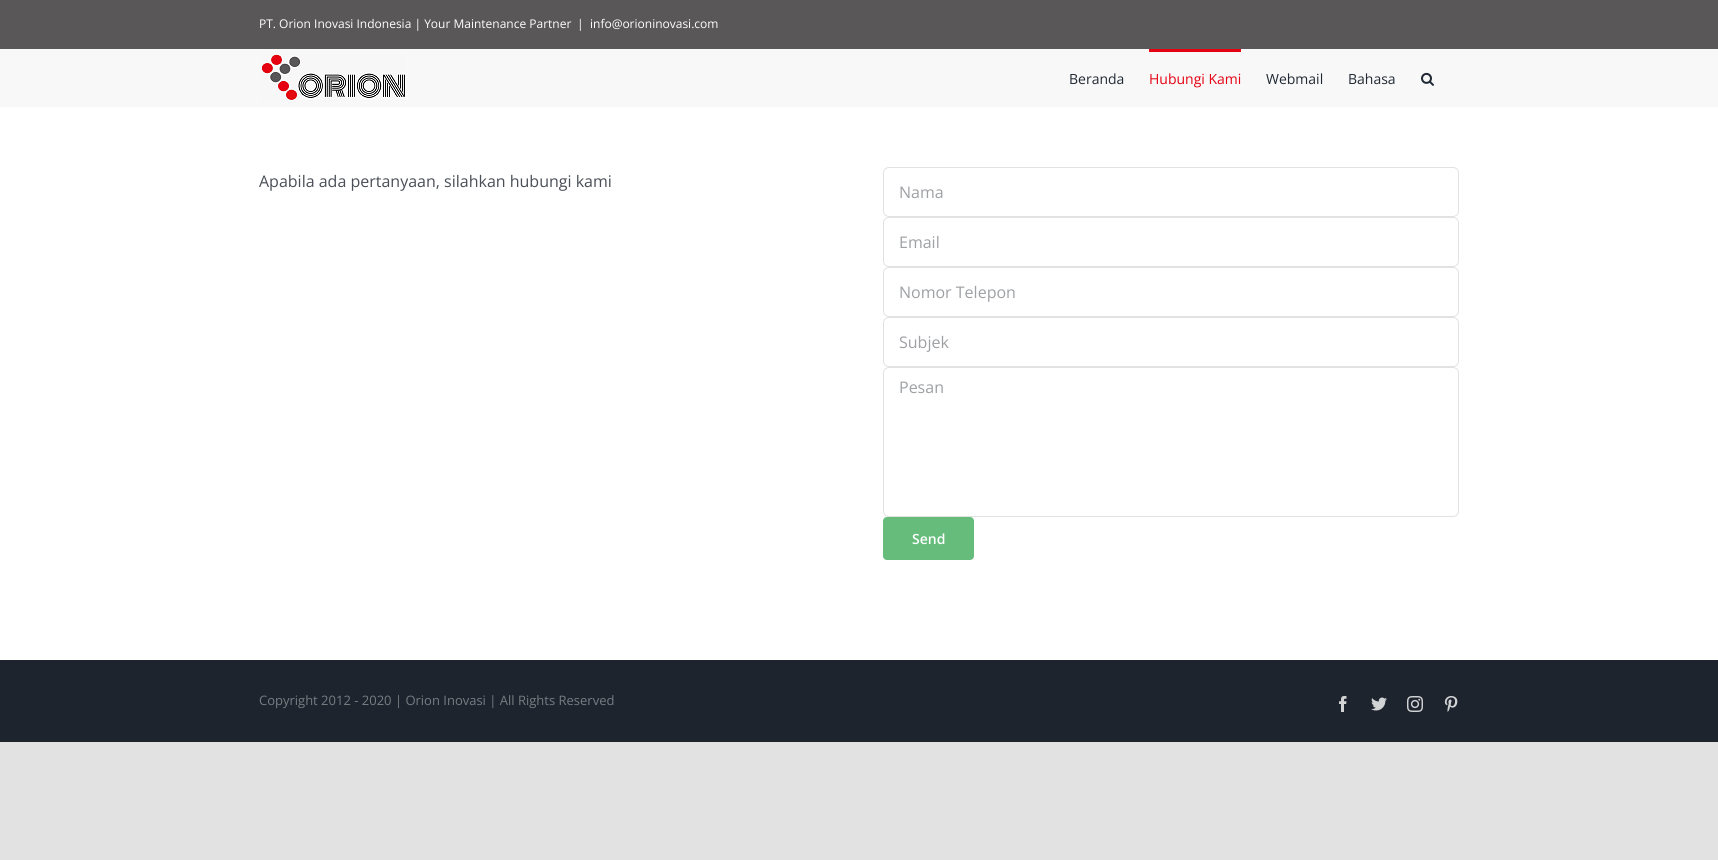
import math
import cairo

surface = cairo.ImageSurface(cairo.FORMAT_RGB24, 1718, 860)
ctx = cairo.Context(surface)
options = cairo.FontOptions()
options.set_hint_metrics(cairo.HINT_METRICS_OFF)
options.set_hint_style(cairo.HINT_STYLE_NONE)
ctx.set_font_options(options)
ctx.set_miter_limit(4)


def round_rect(x, y, w, h, r):
    ctx.new_sub_path()
    for i, (u, v) in enumerate([(x + w - r, y + h - r), (x + r, y + h - r), (x + r, y + r), (x + w - r, y + r)]):
        ctx.arc(u, v, r, i * math.pi / 2, (i + 1) * math.pi / 2)
    ctx.close_path()


def picture(path, x, y, w, h):
    ctx.save()
    ctx.set_source_surface(cairo.ImageSurface.create_from_png(path), x, y)
    ctx.rectangle(x, y, w, h)
    ctx.fill()
    ctx.restore()


ctx.set_source_rgb(0.886, 0.886, 0.886)
ctx.paint()
ctx.set_source_rgb(1, 1, 1)
ctx.rectangle(0, 107, 1718, 553)
ctx.fill()
ctx.set_source_rgb(0.349, 0.341, 0.345)
ctx.rectangle(0, 0, 1718, 49)
ctx.fill()
ctx.select_font_face("Open Sans")
ctx.set_font_size(12)
ctx.set_source_rgb(1, 1, 1)
ctx.move_to(259, 28)
ctx.show_text("PT. Orion Inovasi Indonesia | Your Maintenance Partner")
ctx.move_to(577, 28)
ctx.show_text("|")
ctx.move_to(590, 28)
ctx.show_text("info@orioninovasi.com")
ctx.set_source_rgb(0.969, 0.969, 0.969)
ctx.rectangle(0, 49, 1718, 58)
ctx.fill()
picture("img1.png", 261, 53, 145, 48)
ctx.set_font_size(14)
ctx.set_source_rgb(0.129, 0.161, 0.204)
ctx.move_to(1069, 84)
ctx.show_text("Beranda")
ctx.set_source_rgb(0.898, 0.004, 0.071)
ctx.rectangle(1149, 49, 92, 3)
ctx.fill()
ctx.move_to(1149, 84)
ctx.show_text("Hubungi Kami")
ctx.set_source_rgb(0.129, 0.161, 0.204)
ctx.move_to(1266, 84)
ctx.show_text("Webmail")
ctx.move_to(1348, 84)
ctx.show_text("Bahasa")
picture("img2.png", 1421, 72, 13, 14)
ctx.set_font_size(16)
ctx.set_source_rgb(0.29, 0.306, 0.341)
ctx.move_to(259, 187)
ctx.show_text("Apabila ada pertanyaan, silahkan hubungi kami")
round_rect(883.5, 167.5, 575, 49, 5.5)
ctx.set_source_rgb(0.886, 0.886, 0.886)
ctx.set_line_width(1)
ctx.stroke()
ctx.set_source_rgb(0.62, 0.627, 0.643)
ctx.move_to(899, 198)
ctx.show_text("Nama")
round_rect(883.5, 217.5, 575, 49, 5.5)
ctx.set_source_rgb(0.886, 0.886, 0.886)
ctx.stroke()
ctx.set_source_rgb(0.62, 0.627, 0.643)
ctx.move_to(899, 248)
ctx.show_text("Email")
round_rect(883.5, 267.5, 575, 49, 5.5)
ctx.set_source_rgb(0.886, 0.886, 0.886)
ctx.stroke()
ctx.set_source_rgb(0.62, 0.627, 0.643)
ctx.move_to(899, 298)
ctx.show_text("Nomor Telepon")
round_rect(883.5, 317.5, 575, 49, 5.5)
ctx.set_source_rgb(0.886, 0.886, 0.886)
ctx.stroke()
ctx.set_source_rgb(0.62, 0.627, 0.643)
ctx.move_to(899, 348)
ctx.show_text("Subjek")
round_rect(883.5, 367.5, 575, 149, 5.5)
ctx.set_source_rgb(0.886, 0.886, 0.886)
ctx.stroke()
ctx.set_source_rgb(0.62, 0.627, 0.643)
ctx.move_to(899, 393)
ctx.show_text("Pesan")
ctx.set_source_rgb(0.396, 0.737, 0.482)
round_rect(883, 517, 91, 43, 4)
ctx.fill()
ctx.select_font_face("Open Sans SemiBold")
ctx.set_font_size(14)
ctx.set_source_rgb(1, 1, 1)
ctx.move_to(912, 544)
ctx.show_text("Send")
ctx.set_source_rgb(0.114, 0.141, 0.176)
ctx.rectangle(0, 660, 1718, 82)
ctx.fill()
ctx.select_font_face("Open Sans")
ctx.set_font_size(13)
ctx.set_source_rgb(0.467, 0.486, 0.506)
ctx.move_to(259, 705)
ctx.show_text("Copyright 2012 - 2020 | Orion Inovasi | All Rights Reserved")
picture("img3.png", 1339, 696, 8, 16)
picture("img4.png", 1371, 697, 16, 14)
picture("img5.png", 1407, 696, 16, 16)
picture("img6.png", 1444, 696, 14, 16)
surface.write_to_png("page.png")
